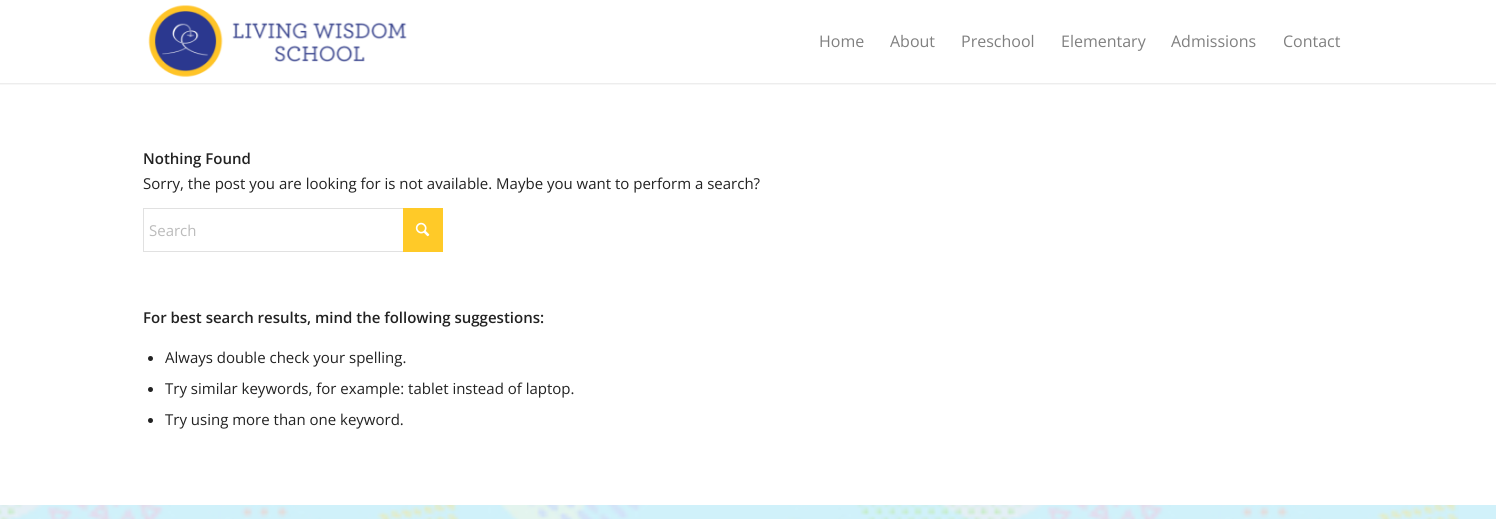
import math
import cairo

surface = cairo.ImageSurface(cairo.FORMAT_RGB24, 1496, 519)
ctx = cairo.Context(surface)
options = cairo.FontOptions()
options.set_hint_metrics(cairo.HINT_METRICS_OFF)
options.set_hint_style(cairo.HINT_STYLE_NONE)
ctx.set_font_options(options)
ctx.set_miter_limit(4)


def round_rect(x, y, w, h, r):
    ctx.new_sub_path()
    for i, (u, v) in enumerate([(x + w - r, y + h - r), (x + r, y + h - r), (x + r, y + r), (x + w - r, y + r)]):
        ctx.arc(u, v, r, i * math.pi / 2, (i + 1) * math.pi / 2)
    ctx.close_path()


def shadow(x, y, w, h, r, blur, alpha):
    ctx.push_group_with_content(cairo.CONTENT_ALPHA)
    ctx.set_operator(cairo.OPERATOR_SOURCE)
    for i in range(15, -16, -2):
        e = blur * i / 6
        if min(w, h) + 2 * e > 0:
            ctx.set_source_rgba(0, 0, 0, alpha * math.erfc((i - 1) / 8.5) / 2)
            round_rect(x - e, y - e, w + 2 * e, h + 2 * e, max(0, min(r + e + blur * .6, min(w, h) / 2 + e)))
            ctx.fill()
    ctx.mask(ctx.pop_group())


def picture(path, x, y, w, h):
    ctx.save()
    ctx.set_source_surface(cairo.ImageSurface.create_from_png(path), x, y)
    ctx.rectangle(x, y, w, h)
    ctx.fill()
    ctx.restore()


ctx.set_source_rgb(1, 1, 1)
ctx.paint()
ctx.save()
ctx.rectangle(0, 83, 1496, 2)
ctx.clip()
ctx.set_source_rgb(0, 0, 0)
shadow(-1, -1, 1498, 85, 0, 1, 0.1)
ctx.restore()
picture("img1.png", 148, 5, 259, 72)
ctx.select_font_face("Open Sans")
ctx.set_font_size(16)
ctx.set_source_rgb(0.502, 0.502, 0.502)
ctx.move_to(819, 47)
ctx.show_text("Home")
ctx.move_to(890, 47)
ctx.show_text("About")
ctx.move_to(961, 47)
ctx.show_text("Preschool")
ctx.move_to(1061, 47)
ctx.show_text("Elementary")
ctx.move_to(1171, 47)
ctx.show_text("Admissions")
ctx.move_to(1283, 47)
ctx.show_text("Contact")
ctx.select_font_face("Open Sans SemiBold")
ctx.set_font_size(15)
ctx.set_source_rgb(0.133, 0.133, 0.133)
ctx.move_to(143, 164)
ctx.show_text("Nothing Found")
ctx.select_font_face("Open Sans")
ctx.move_to(143, 189)
ctx.show_text("Sorry, the post you are looking for is not available. Maybe you want to perform a search?")
ctx.rectangle(143.5, 208.5, 299, 43)
ctx.set_source_rgb(0.882, 0.882, 0.882)
ctx.set_line_width(1)
ctx.stroke()
ctx.set_source_rgb(1, 0.792, 0.157)
ctx.rectangle(403, 208, 40, 44)
ctx.fill()
ctx.set_source_rgb(0.733, 0.733, 0.733)
ctx.move_to(149, 236)
ctx.show_text("Search")
picture("img2.png", 415, 222, 15, 15)
ctx.select_font_face("Open Sans SemiBold")
ctx.set_source_rgb(0.133, 0.133, 0.133)
ctx.move_to(143, 323)
ctx.show_text("For best search results, mind the following suggestions:")
ctx.new_path()
ctx.arc(150.5, 358.5, 2.5, 0, 2 * math.pi)
ctx.fill()
ctx.select_font_face("Open Sans")
ctx.move_to(165, 363)
ctx.show_text("Always double check your spelling.")
ctx.new_path()
ctx.arc(150.5, 389.5, 2.5, 0, 2 * math.pi)
ctx.fill()
ctx.move_to(165, 394)
ctx.show_text("Try similar keywords, for example: tablet instead of laptop.")
ctx.new_path()
ctx.arc(150.5, 420.5, 2.5, 0, 2 * math.pi)
ctx.fill()
ctx.move_to(165, 425)
ctx.show_text("Try using more than one keyword.")
ctx.set_source_rgb(0.82, 0.945, 0.98)
ctx.rectangle(1459, 505, 37, 14)
ctx.fill()
picture("img3.png", 0, 505, 1459, 14)
surface.write_to_png("page.png")
